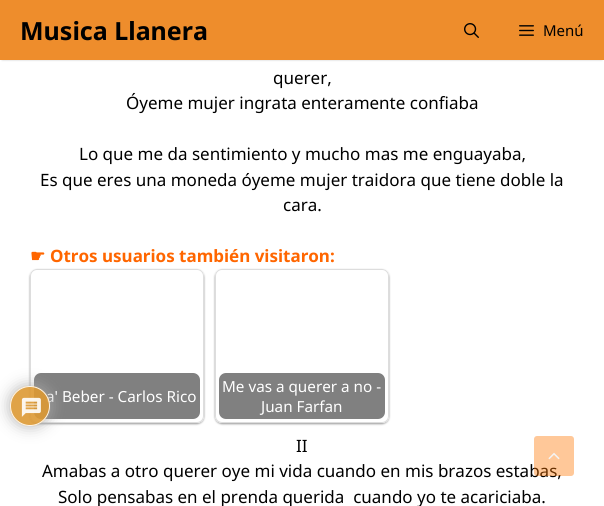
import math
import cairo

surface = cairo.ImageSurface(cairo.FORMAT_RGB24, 604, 506)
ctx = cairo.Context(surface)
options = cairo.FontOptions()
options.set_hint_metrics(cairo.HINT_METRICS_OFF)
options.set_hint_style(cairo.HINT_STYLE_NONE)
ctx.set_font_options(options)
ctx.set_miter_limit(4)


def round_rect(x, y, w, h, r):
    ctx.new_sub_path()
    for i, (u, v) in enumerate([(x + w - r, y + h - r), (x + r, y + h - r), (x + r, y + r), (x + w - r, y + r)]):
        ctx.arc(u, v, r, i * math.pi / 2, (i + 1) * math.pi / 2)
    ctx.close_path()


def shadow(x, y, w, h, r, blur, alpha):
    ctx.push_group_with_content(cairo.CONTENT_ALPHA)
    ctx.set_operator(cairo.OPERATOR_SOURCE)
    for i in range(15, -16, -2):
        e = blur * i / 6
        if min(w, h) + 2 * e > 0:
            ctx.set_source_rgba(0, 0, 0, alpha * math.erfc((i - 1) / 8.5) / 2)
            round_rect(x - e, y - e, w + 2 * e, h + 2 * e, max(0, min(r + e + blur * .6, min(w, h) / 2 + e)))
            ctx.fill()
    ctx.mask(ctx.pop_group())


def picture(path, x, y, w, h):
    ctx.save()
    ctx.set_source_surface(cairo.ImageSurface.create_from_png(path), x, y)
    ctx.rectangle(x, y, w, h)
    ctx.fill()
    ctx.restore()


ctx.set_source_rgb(1, 1, 1)
ctx.paint()
ctx.set_source_rgb(0, 0, 0)
shadow(2, 4, 600, 56, 0, 1, 0.2)
ctx.set_source_rgb(0.933, 0.553, 0.173)
ctx.rectangle(0, 0, 604, 60)
ctx.fill()
ctx.select_font_face("Noto Sans", cairo.FONT_SLANT_NORMAL, cairo.FONT_WEIGHT_BOLD)
ctx.set_font_size(25)
ctx.set_source_rgb(0, 0, 0)
ctx.move_to(20, 40)
ctx.show_text("Musica Llanera")
picture("img1.png", 464, 23, 15, 15)
picture("img2.png", 519, 25, 15, 11)
ctx.select_font_face("Noto Sans")
ctx.set_font_size(15)
ctx.move_to(543, 36)
ctx.show_text("Menú")
ctx.set_font_size(17)
ctx.move_to(273, 84)
ctx.show_text("querer,")
ctx.move_to(126, 109)
ctx.show_text("Óyeme mujer ingrata enteramente confiaba")
ctx.move_to(79, 160)
ctx.show_text("Lo que me da sentimiento y mucho mas me enguayaba,")
ctx.move_to(40, 186)
ctx.show_text("Es que eres una moneda óyeme mujer traidora que tiene doble la")
ctx.move_to(283, 211)
ctx.show_text("cara.")
ctx.select_font_face("DejaVu Sans", cairo.FONT_SLANT_NORMAL, cairo.FONT_WEIGHT_BOLD)
ctx.set_source_rgb(1, 0.4, 0)
ctx.move_to(30, 262)
ctx.show_text("☛")
ctx.select_font_face("Noto Sans", cairo.FONT_SLANT_NORMAL, cairo.FONT_WEIGHT_BOLD)
ctx.move_to(50, 262)
ctx.show_text("Otros usuarios también visitaron:")
ctx.save()
ctx.set_fill_rule(cairo.FILL_RULE_EVEN_ODD)
ctx.new_path()
ctx.move_to(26, 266)
ctx.line_to(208, 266)
ctx.line_to(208, 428)
ctx.line_to(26, 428)
ctx.close_path()
ctx.move_to(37, 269)
ctx.line_to(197, 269)
ctx.curve_to(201, 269, 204, 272, 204, 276)
ctx.line_to(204, 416)
ctx.curve_to(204, 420, 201, 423, 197, 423)
ctx.line_to(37, 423)
ctx.curve_to(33, 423, 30, 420, 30, 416)
ctx.line_to(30, 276)
ctx.curve_to(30, 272, 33, 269, 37, 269)
ctx.close_path()
ctx.clip()
ctx.set_source_rgb(0, 0, 0)
shadow(30, 270, 174, 154, 7, 1, 0.4)
ctx.restore()
round_rect(30.5, 269.5, 173, 153, 6.5)
ctx.set_source_rgb(0.867, 0.867, 0.867)
ctx.set_line_width(1)
ctx.stroke()
ctx.set_source_rgb(0.502, 0.502, 0.502)
round_rect(34, 373, 166, 46, 7)
ctx.fill()
ctx.select_font_face("Noto Sans")
ctx.set_font_size(15.25)
ctx.set_source_rgb(1, 1, 1)
ctx.move_to(46, 402)
ctx.show_text("a' Beber - Carlos Rico")
ctx.save()
ctx.set_fill_rule(cairo.FILL_RULE_EVEN_ODD)
ctx.new_path()
ctx.move_to(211, 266)
ctx.line_to(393, 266)
ctx.line_to(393, 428)
ctx.line_to(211, 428)
ctx.close_path()
ctx.move_to(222, 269)
ctx.line_to(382, 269)
ctx.curve_to(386, 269, 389, 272, 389, 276)
ctx.line_to(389, 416)
ctx.curve_to(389, 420, 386, 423, 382, 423)
ctx.line_to(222, 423)
ctx.curve_to(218, 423, 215, 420, 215, 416)
ctx.line_to(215, 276)
ctx.curve_to(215, 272, 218, 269, 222, 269)
ctx.close_path()
ctx.clip()
ctx.set_source_rgb(0, 0, 0)
shadow(215, 270, 174, 154, 7, 1, 0.4)
ctx.restore()
round_rect(215.5, 269.5, 173, 153, 6.5)
ctx.set_source_rgb(0.867, 0.867, 0.867)
ctx.stroke()
ctx.set_source_rgb(0.502, 0.502, 0.502)
round_rect(219, 373, 166, 46, 7)
ctx.fill()
ctx.set_source_rgb(1, 1, 1)
ctx.move_to(222, 392)
ctx.show_text("Me vas a querer a no -")
ctx.move_to(261, 412)
ctx.show_text("Juan Farfan")
ctx.set_font_size(17)
ctx.set_source_rgb(0, 0, 0)
ctx.move_to(296, 452)
ctx.show_text("II")
ctx.move_to(42, 477)
ctx.show_text("Amabas a otro querer oye mi vida cuando en mis brazos estabas,")
ctx.move_to(58, 503)
ctx.show_text("Solo pensabas en el prenda querida  cuando yo te acariciaba.")
ctx.save()
ctx.set_fill_rule(cairo.FILL_RULE_EVEN_ODD)
ctx.new_path()
ctx.move_to(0, 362)
ctx.line_to(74, 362)
ctx.line_to(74, 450)
ctx.line_to(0, 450)
ctx.close_path()
ctx.move_to(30, 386)
ctx.curve_to(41, 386, 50, 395, 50, 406)
ctx.curve_to(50, 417, 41, 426, 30, 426)
ctx.curve_to(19, 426, 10, 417, 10, 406)
ctx.curve_to(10, 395, 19, 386, 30, 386)
ctx.close_path()
ctx.clip()
ctx.set_source_rgb(0.667, 0.667, 0.667)
shadow(10, 386, 40, 40, 20, 7.5, 0.9)
ctx.restore()
ctx.set_source_rgba(0.867, 0.6, 0.2, 0.9)
ctx.arc(30, 406, 20, 0, 2 * math.pi)
ctx.fill()
ctx.arc(30, 406, 19.5, 0, 2 * math.pi)
ctx.set_source_rgba(1, 1, 1, 0.9)
ctx.stroke()
picture("img3.png", 21, 397, 20, 20)
ctx.set_source_rgba(1, 0.467, 0, 0.4)
round_rect(534, 436, 40, 40, 3)
ctx.fill()
picture("img4.png", 548, 452, 12, 8)
surface.write_to_png("page.png")
